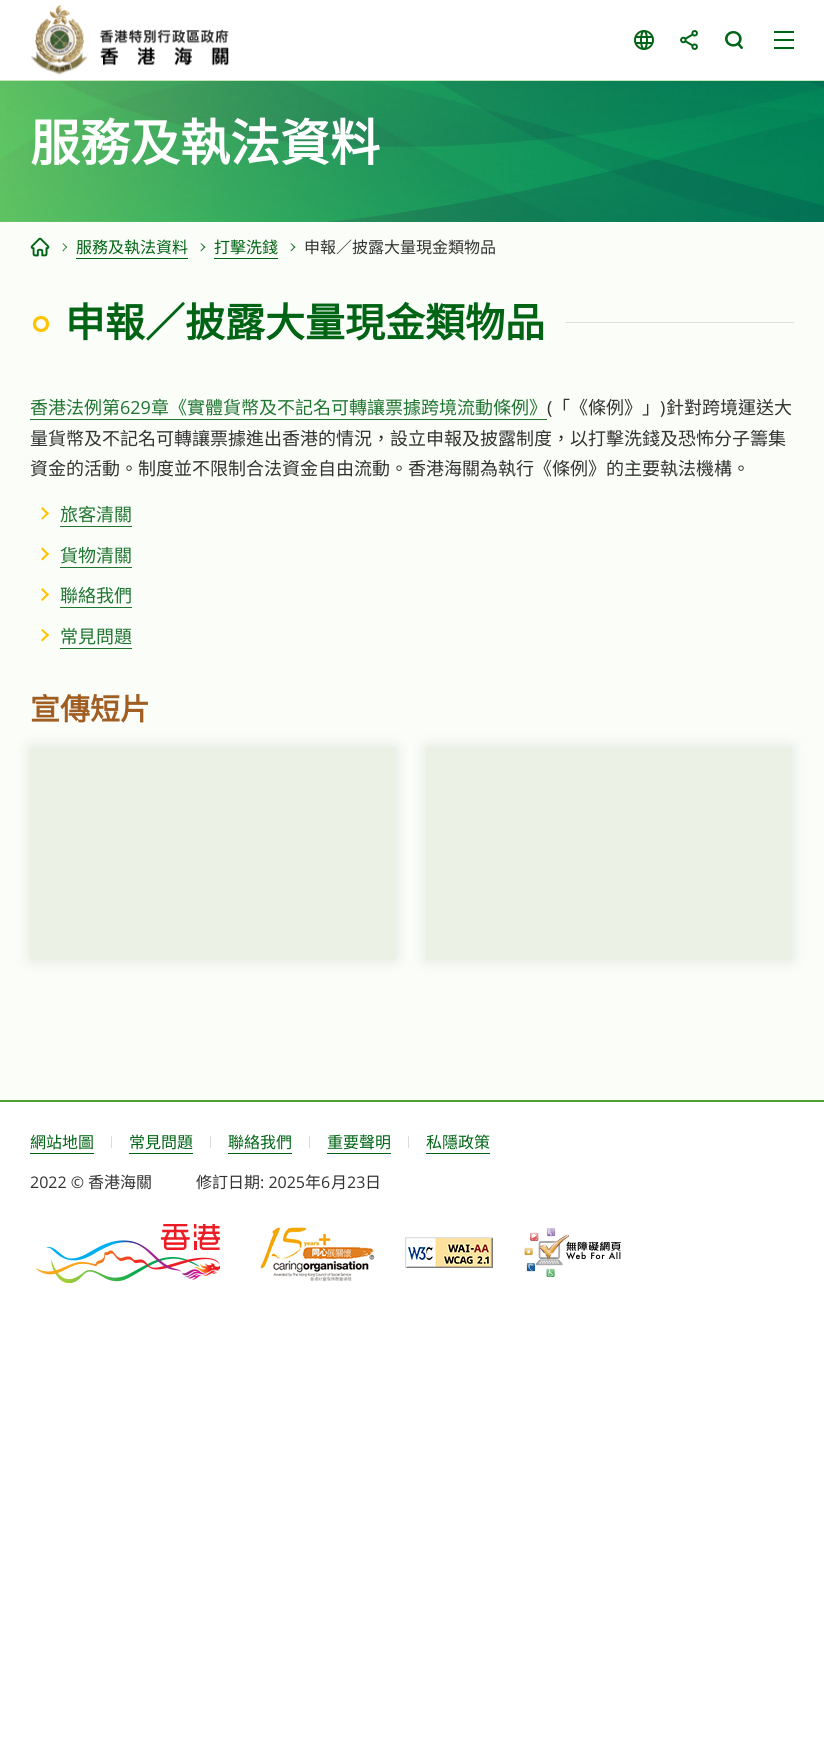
import math
import cairo

surface = cairo.ImageSurface(cairo.FORMAT_RGB24, 824, 1751)
ctx = cairo.Context(surface)
options = cairo.FontOptions()
options.set_hint_metrics(cairo.HINT_METRICS_OFF)
options.set_hint_style(cairo.HINT_STYLE_NONE)
ctx.set_font_options(options)
ctx.set_miter_limit(4)


def round_rect(x, y, w, h, r):
    ctx.new_sub_path()
    for i, (u, v) in enumerate([(x + w - r, y + h - r), (x + r, y + h - r), (x + r, y + r), (x + w - r, y + r)]):
        ctx.arc(u, v, r, i * math.pi / 2, (i + 1) * math.pi / 2)
    ctx.close_path()


def shadow(x, y, w, h, r, blur, alpha):
    ctx.push_group_with_content(cairo.CONTENT_ALPHA)
    ctx.set_operator(cairo.OPERATOR_SOURCE)
    for i in range(15, -16, -2):
        e = blur * i / 6
        if min(w, h) + 2 * e > 0:
            ctx.set_source_rgba(0, 0, 0, alpha * math.erfc((i - 1) / 8.5) / 2)
            round_rect(x - e, y - e, w + 2 * e, h + 2 * e, max(0, min(r + e + blur * .6, min(w, h) / 2 + e)))
            ctx.fill()
    ctx.mask(ctx.pop_group())


def picture(path, x, y, w, h):
    ctx.save()
    ctx.set_source_surface(cairo.ImageSurface.create_from_png(path), x, y)
    ctx.rectangle(x, y, w, h)
    ctx.fill()
    ctx.restore()


ctx.set_source_rgb(1, 1, 1)
ctx.paint()
ctx.set_source_rgb(0.776, 0.906, 0.725)
ctx.rectangle(0, 80, 824, 1)
ctx.fill()
picture("img1.png", 31, 5, 198, 70)
picture("img2.png", 634, 30, 20, 20)
picture("img3.png", 680, 30, 18, 20)
picture("img4.png", 725, 31, 18, 18)
ctx.set_source_rgb(0, 0.392, 0.082)
ctx.rectangle(774, 39, 20, 2)
ctx.fill()
ctx.rectangle(774, 31, 20, 2)
ctx.fill()
ctx.rectangle(774, 47, 20, 2)
ctx.fill()
ctx.set_source_rgb(0.98, 0.992, 0.969)
ctx.rectangle(0, 222, 824, 878)
ctx.fill()
picture("img5.png", 0, 81, 824, 141)
ctx.select_font_face("Noto Sans CJK HK", cairo.FONT_SLANT_NORMAL, cairo.FONT_WEIGHT_BOLD)
ctx.set_font_size(50)
ctx.set_source_rgb(1, 1, 1)
ctx.move_to(30, 161)
ctx.show_text("服務及執法資料")
picture("img6.png", 30, 237, 20, 20)
ctx.set_source_rgb(0.125, 0.459, 0.192)
ctx.new_path()
ctx.move_to(62.5, 243.5)
ctx.line_to(63, 243)
ctx.line_to(67, 247)
ctx.line_to(66.5, 248)
ctx.close_path()
ctx.fill()
ctx.new_path()
ctx.move_to(62.5, 250.5)
ctx.line_to(66.5, 246.5)
ctx.line_to(67, 247)
ctx.line_to(63, 251.5)
ctx.close_path()
ctx.fill()
ctx.select_font_face("Noto Sans CJK HK")
ctx.set_font_size(16)
ctx.set_source_rgb(0, 0.392, 0.082)
ctx.move_to(76, 253)
ctx.show_text("服務及執法資料")
ctx.rectangle(76, 258, 112, 1)
ctx.fill()
ctx.set_source_rgb(0.125, 0.459, 0.192)
ctx.new_path()
ctx.move_to(200.5, 243.5)
ctx.line_to(201, 243)
ctx.line_to(205.5, 247)
ctx.line_to(204.5, 248)
ctx.close_path()
ctx.fill()
ctx.new_path()
ctx.move_to(200.5, 250.5)
ctx.line_to(204.5, 246.5)
ctx.line_to(205.5, 247)
ctx.line_to(201, 251.5)
ctx.close_path()
ctx.fill()
ctx.set_source_rgb(0, 0.392, 0.082)
ctx.move_to(214, 253)
ctx.show_text("打擊洗錢")
ctx.rectangle(214, 258, 64, 1)
ctx.fill()
ctx.set_source_rgb(0.125, 0.459, 0.192)
ctx.new_path()
ctx.move_to(290.5, 243.5)
ctx.line_to(291, 243)
ctx.line_to(295.5, 247)
ctx.line_to(294.5, 248)
ctx.close_path()
ctx.fill()
ctx.new_path()
ctx.move_to(290.5, 250.5)
ctx.line_to(294.5, 246.5)
ctx.line_to(295.5, 247)
ctx.line_to(291, 251.5)
ctx.close_path()
ctx.fill()
ctx.set_source_rgb(0.2, 0.2, 0.2)
ctx.move_to(304, 253)
ctx.show_text("申報／披露大量現金類物品")
ctx.new_path()
ctx.arc(41, 324, 6.5, 0, 2 * math.pi)
ctx.set_source_rgb(1, 0.765, 0)
ctx.set_line_width(3.2)
ctx.stroke()
ctx.select_font_face("Noto Sans CJK HK", cairo.FONT_SLANT_NORMAL, cairo.FONT_WEIGHT_BOLD)
ctx.set_font_size(40)
ctx.set_source_rgb(0, 0.392, 0.082)
ctx.move_to(65, 337)
ctx.show_text("申報／披露大量現金類物品")
ctx.set_source_rgb(0.871, 0.878, 0.851)
ctx.rectangle(565, 322, 229, 1)
ctx.fill()
ctx.select_font_face("Noto Sans CJK HK")
ctx.set_font_size(18)
ctx.set_source_rgb(0.125, 0.459, 0.192)
ctx.move_to(30, 414)
ctx.show_text("香港法例第")
ctx.select_font_face("Open Sans")
ctx.move_to(120, 414)
ctx.show_text("629")
ctx.rectangle(30, 419, 517, 1)
ctx.fill()
ctx.select_font_face("Noto Sans CJK HK")
ctx.move_to(151, 414)
ctx.show_text("章《實體貨幣及不記名可轉讓票據跨境流動條例》")
ctx.select_font_face("Open Sans")
ctx.set_source_rgb(0.2, 0.2, 0.2)
ctx.move_to(547, 414)
ctx.show_text("(")
ctx.select_font_face("Noto Sans CJK HK")
ctx.move_to(552, 414)
ctx.show_text("「《條例》」")
ctx.select_font_face("Open Sans")
ctx.move_to(660, 414)
ctx.show_text(")")
ctx.select_font_face("Noto Sans CJK HK")
ctx.move_to(666, 414)
ctx.show_text("針對跨境運送大")
ctx.move_to(30, 445)
ctx.show_text("量貨幣及不記名可轉讓票據進出香港的情況，設立申報及披露制度，以打擊洗錢及恐怖分子籌集")
ctx.move_to(30, 475)
ctx.show_text("資金的活動。制度並不限制合法資金自由流動。香港海關為執行《條例》的主要執法機構。")
ctx.set_source_rgb(1, 0.765, 0)
ctx.new_path()
ctx.move_to(41, 508.5)
ctx.line_to(42.5, 507)
ctx.line_to(49, 513.5)
ctx.line_to(47.5, 515)
ctx.close_path()
ctx.fill()
ctx.new_path()
ctx.move_to(41, 518.5)
ctx.line_to(47.5, 512)
ctx.line_to(49, 513.5)
ctx.line_to(42.5, 519.5)
ctx.close_path()
ctx.fill()
ctx.set_source_rgb(0.125, 0.459, 0.192)
ctx.move_to(60, 521)
ctx.show_text("旅客清關")
ctx.rectangle(60, 526, 72, 1)
ctx.fill()
ctx.set_source_rgb(1, 0.765, 0)
ctx.new_path()
ctx.move_to(41, 549)
ctx.line_to(42.5, 547.5)
ctx.line_to(49, 554)
ctx.line_to(47.5, 555.5)
ctx.close_path()
ctx.fill()
ctx.new_path()
ctx.move_to(41, 559)
ctx.line_to(47.5, 552.5)
ctx.line_to(49, 554)
ctx.line_to(42.5, 560.5)
ctx.close_path()
ctx.fill()
ctx.set_source_rgb(0.125, 0.459, 0.192)
ctx.move_to(60, 562)
ctx.show_text("貨物清關")
ctx.rectangle(60, 567, 72, 1)
ctx.fill()
ctx.set_source_rgb(1, 0.765, 0)
ctx.new_path()
ctx.move_to(41, 589.5)
ctx.line_to(42.5, 588)
ctx.line_to(49, 594.5)
ctx.line_to(47.5, 596)
ctx.close_path()
ctx.fill()
ctx.new_path()
ctx.move_to(41, 599.5)
ctx.line_to(47.5, 593)
ctx.line_to(49, 594.5)
ctx.line_to(42.5, 601)
ctx.close_path()
ctx.fill()
ctx.set_source_rgb(0.125, 0.459, 0.192)
ctx.move_to(60, 602)
ctx.show_text("聯絡我們")
ctx.rectangle(60, 607, 72, 1)
ctx.fill()
ctx.set_source_rgb(1, 0.765, 0)
ctx.new_path()
ctx.move_to(41, 630)
ctx.line_to(42.5, 629)
ctx.line_to(49, 635)
ctx.line_to(47.5, 636.5)
ctx.close_path()
ctx.fill()
ctx.new_path()
ctx.move_to(41, 640)
ctx.line_to(47.5, 633.5)
ctx.line_to(49, 635)
ctx.line_to(42.5, 641.5)
ctx.close_path()
ctx.fill()
ctx.set_source_rgb(0.125, 0.459, 0.192)
ctx.move_to(60, 643)
ctx.show_text("常見問題")
ctx.rectangle(60, 648, 72, 1)
ctx.fill()
ctx.select_font_face("Noto Sans CJK HK", cairo.FONT_SLANT_NORMAL, cairo.FONT_WEIGHT_BOLD)
ctx.set_font_size(30)
ctx.set_source_rgb(0.631, 0.369, 0.137)
ctx.move_to(30, 720)
ctx.show_text("宣傳短片")
ctx.set_source_rgb(0, 0, 0)
shadow(30, 747, 366, 213, 0, 7.5, 0.1)
ctx.set_source_rgb(0.918, 0.945, 0.894)
ctx.rectangle(30, 747, 366, 213)
ctx.fill()
ctx.set_source_rgb(0, 0, 0)
shadow(426, 747, 366, 213, 0, 7.5, 0.1)
ctx.set_source_rgb(0.918, 0.945, 0.894)
ctx.rectangle(426, 747, 366, 213)
ctx.fill()
ctx.set_source_rgb(0.31, 0.631, 0.184)
ctx.rectangle(0, 1100, 824, 2)
ctx.fill()
ctx.select_font_face("Noto Sans CJK HK")
ctx.set_font_size(16)
ctx.set_source_rgb(0, 0.392, 0.082)
ctx.move_to(30, 1148)
ctx.show_text("網站地圖")
ctx.rectangle(30, 1153, 64, 1)
ctx.fill()
ctx.set_source_rgb(0.859, 0.859, 0.859)
ctx.rectangle(111, 1136, 1, 12)
ctx.fill()
ctx.set_source_rgb(0, 0.392, 0.082)
ctx.move_to(129, 1148)
ctx.show_text("常見問題")
ctx.rectangle(129, 1153, 64, 1)
ctx.fill()
ctx.set_source_rgb(0.859, 0.859, 0.859)
ctx.rectangle(210, 1136, 1, 12)
ctx.fill()
ctx.set_source_rgb(0, 0.392, 0.082)
ctx.move_to(228, 1148)
ctx.show_text("聯絡我們")
ctx.rectangle(228, 1153, 64, 1)
ctx.fill()
ctx.set_source_rgb(0.859, 0.859, 0.859)
ctx.rectangle(309, 1136, 1, 12)
ctx.fill()
ctx.set_source_rgb(0, 0.392, 0.082)
ctx.move_to(327, 1148)
ctx.show_text("重要聲明")
ctx.rectangle(327, 1153, 64, 1)
ctx.fill()
ctx.set_source_rgb(0.859, 0.859, 0.859)
ctx.rectangle(408, 1136, 1, 12)
ctx.fill()
ctx.set_source_rgb(0, 0.392, 0.082)
ctx.move_to(426, 1148)
ctx.show_text("私隱政策")
ctx.rectangle(426, 1153, 64, 1)
ctx.fill()
ctx.select_font_face("Open Sans")
ctx.set_source_rgb(0.2, 0.2, 0.2)
ctx.move_to(30, 1188)
ctx.show_text("2022 ©")
ctx.select_font_face("Noto Sans CJK HK")
ctx.move_to(88, 1188)
ctx.show_text("香港海關")
ctx.move_to(196, 1188)
ctx.show_text("修訂日期")
ctx.select_font_face("Open Sans")
ctx.move_to(260, 1188)
ctx.show_text(": 2025")
ctx.select_font_face("Noto Sans CJK HK")
ctx.move_to(305, 1188)
ctx.show_text("年")
ctx.select_font_face("Open Sans")
ctx.move_to(321, 1188)
ctx.show_text("6")
ctx.select_font_face("Noto Sans CJK HK")
ctx.move_to(331, 1188)
ctx.show_text("月")
ctx.select_font_face("Open Sans")
ctx.move_to(347, 1188)
ctx.show_text("23")
ctx.select_font_face("Noto Sans CJK HK")
ctx.move_to(365, 1188)
ctx.show_text("日")
picture("img7.png", 36, 1224, 184, 59)
picture("img8.png", 260, 1227, 115, 55)
picture("img9.png", 405, 1237, 88, 31)
picture("img10.png", 524, 1228, 97, 49)
surface.write_to_png("page.png")
